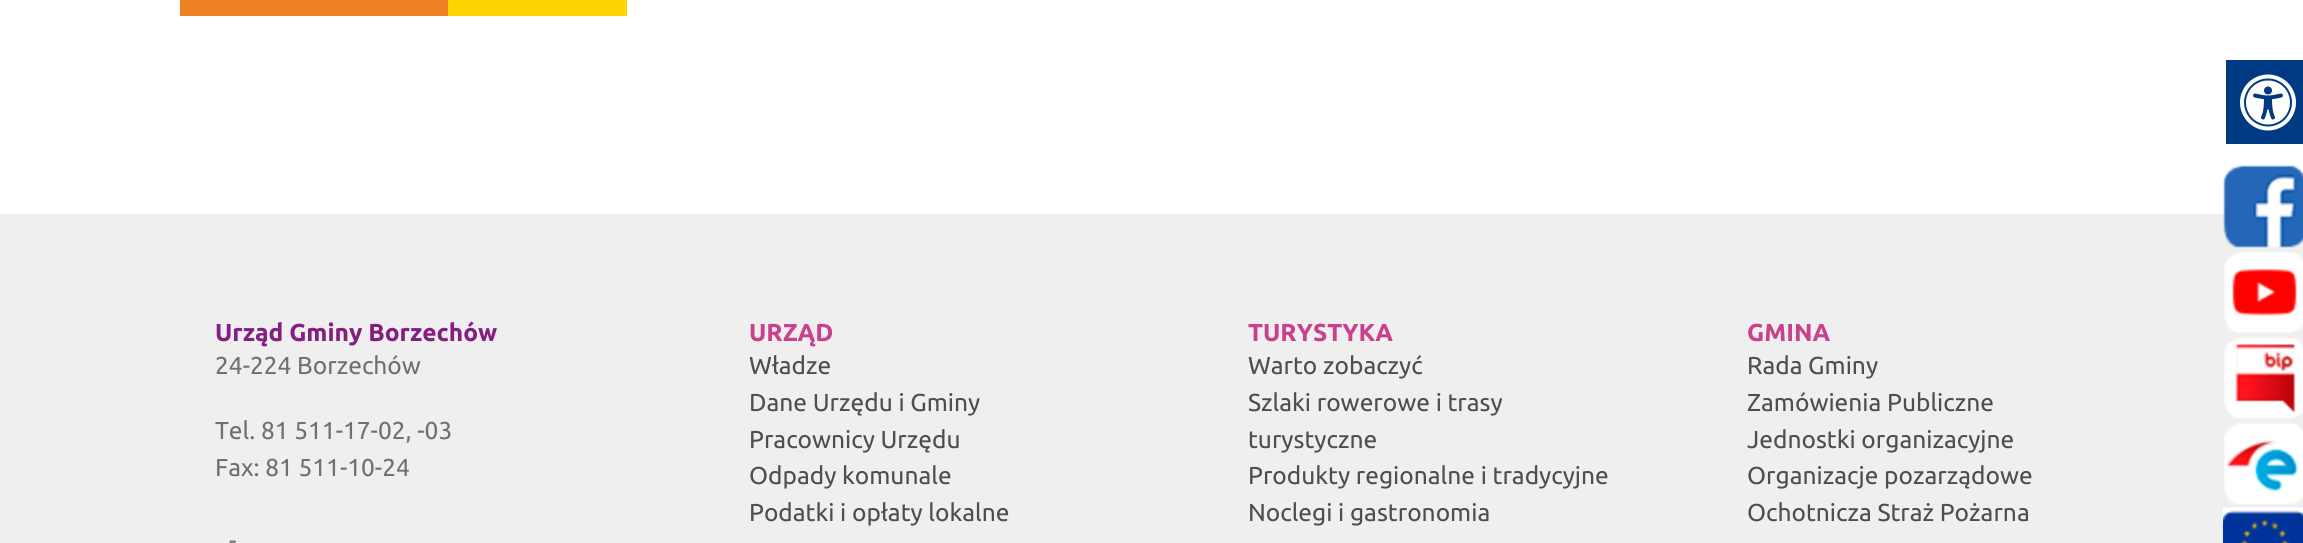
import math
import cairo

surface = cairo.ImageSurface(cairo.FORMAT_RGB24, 2303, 543)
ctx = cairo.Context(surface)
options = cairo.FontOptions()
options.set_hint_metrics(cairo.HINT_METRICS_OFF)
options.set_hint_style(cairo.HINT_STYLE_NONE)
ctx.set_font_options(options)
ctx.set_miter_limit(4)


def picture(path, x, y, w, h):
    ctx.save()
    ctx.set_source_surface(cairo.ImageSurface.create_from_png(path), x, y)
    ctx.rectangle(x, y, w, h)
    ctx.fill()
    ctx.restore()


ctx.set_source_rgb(1, 1, 1)
ctx.paint()
ctx.set_source_rgb(0, 0.224, 0.518)
ctx.rectangle(2226, 60, 77, 84)
ctx.fill()
picture("img1.png", 2240, 74, 56, 57)
ctx.set_source_rgb(0.933, 0.506, 0.133)
ctx.rectangle(180, 0, 268, 16)
ctx.fill()
ctx.set_source_rgb(1, 0.835, 0)
ctx.rectangle(448, 0, 179, 16)
ctx.fill()
ctx.set_source_rgb(0.937, 0.937, 0.937)
ctx.rectangle(0, 214, 2303, 329)
ctx.fill()
ctx.select_font_face("Ubuntu", cairo.FONT_SLANT_NORMAL, cairo.FONT_WEIGHT_BOLD)
ctx.set_font_size(24.5)
ctx.set_source_rgb(0.518, 0.122, 0.506)
ctx.move_to(215, 341)
ctx.show_text("Urząd Gminy Borzechów")
ctx.select_font_face("Ubuntu")
ctx.set_source_rgb(0.439, 0.439, 0.439)
ctx.move_to(215, 374)
ctx.show_text("24-224 Borzechów")
ctx.move_to(215, 439)
ctx.show_text("Tel. 81 511-17-02, -03")
ctx.move_to(215, 476)
ctx.show_text("Fax: 81 511-10-24")
ctx.move_to(229, 549)
ctx.show_text("-")
ctx.select_font_face("Ubuntu", cairo.FONT_SLANT_NORMAL, cairo.FONT_WEIGHT_BOLD)
ctx.set_source_rgb(0.788, 0.255, 0.553)
ctx.move_to(749, 341)
ctx.show_text("URZĄD")
ctx.select_font_face("Ubuntu")
ctx.set_source_rgb(0.306, 0.306, 0.306)
ctx.move_to(749, 374)
ctx.show_text("Władze")
ctx.move_to(749, 411)
ctx.show_text("Dane Urzędu i Gminy")
ctx.move_to(749, 448)
ctx.show_text("Pracownicy Urzędu")
ctx.move_to(749, 484)
ctx.show_text("Odpady komunale")
ctx.move_to(749, 521)
ctx.show_text("Podatki i opłaty lokalne")
ctx.select_font_face("Ubuntu", cairo.FONT_SLANT_NORMAL, cairo.FONT_WEIGHT_BOLD)
ctx.set_source_rgb(0.788, 0.255, 0.553)
ctx.move_to(1248, 341)
ctx.show_text("TURYSTYKA")
ctx.select_font_face("Ubuntu")
ctx.set_source_rgb(0.306, 0.306, 0.306)
ctx.move_to(1248, 374)
ctx.show_text("Warto zobaczyć")
ctx.move_to(1248, 411)
ctx.show_text("Szlaki rowerowe i trasy")
ctx.move_to(1248, 448)
ctx.show_text("turystyczne")
ctx.move_to(1248, 484)
ctx.show_text("Produkty regionalne i tradycyjne")
ctx.move_to(1248, 521)
ctx.show_text("Noclegi i gastronomia")
ctx.select_font_face("Ubuntu", cairo.FONT_SLANT_NORMAL, cairo.FONT_WEIGHT_BOLD)
ctx.set_source_rgb(0.788, 0.255, 0.553)
ctx.move_to(1747, 341)
ctx.show_text("GMINA")
ctx.select_font_face("Ubuntu")
ctx.set_source_rgb(0.306, 0.306, 0.306)
ctx.move_to(1747, 374)
ctx.show_text("Rada Gminy")
ctx.move_to(1747, 411)
ctx.show_text("Zamówienia Publiczne")
ctx.move_to(1747, 448)
ctx.show_text("Jednostki organizacyjne")
ctx.move_to(1747, 484)
ctx.show_text("Organizacje pozarządowe")
ctx.move_to(1747, 521)
ctx.show_text("Ochotnicza Straż Pożarna")
picture("img2.png", 2223, 165, 80, 83)
picture("img3.png", 2224, 252, 79, 81)
picture("img4.png", 2224, 337, 79, 82)
picture("img5.png", 2224, 423, 79, 82)
picture("img6.png", 2223, 507, 80, 36)
surface.write_to_png("page.png")
